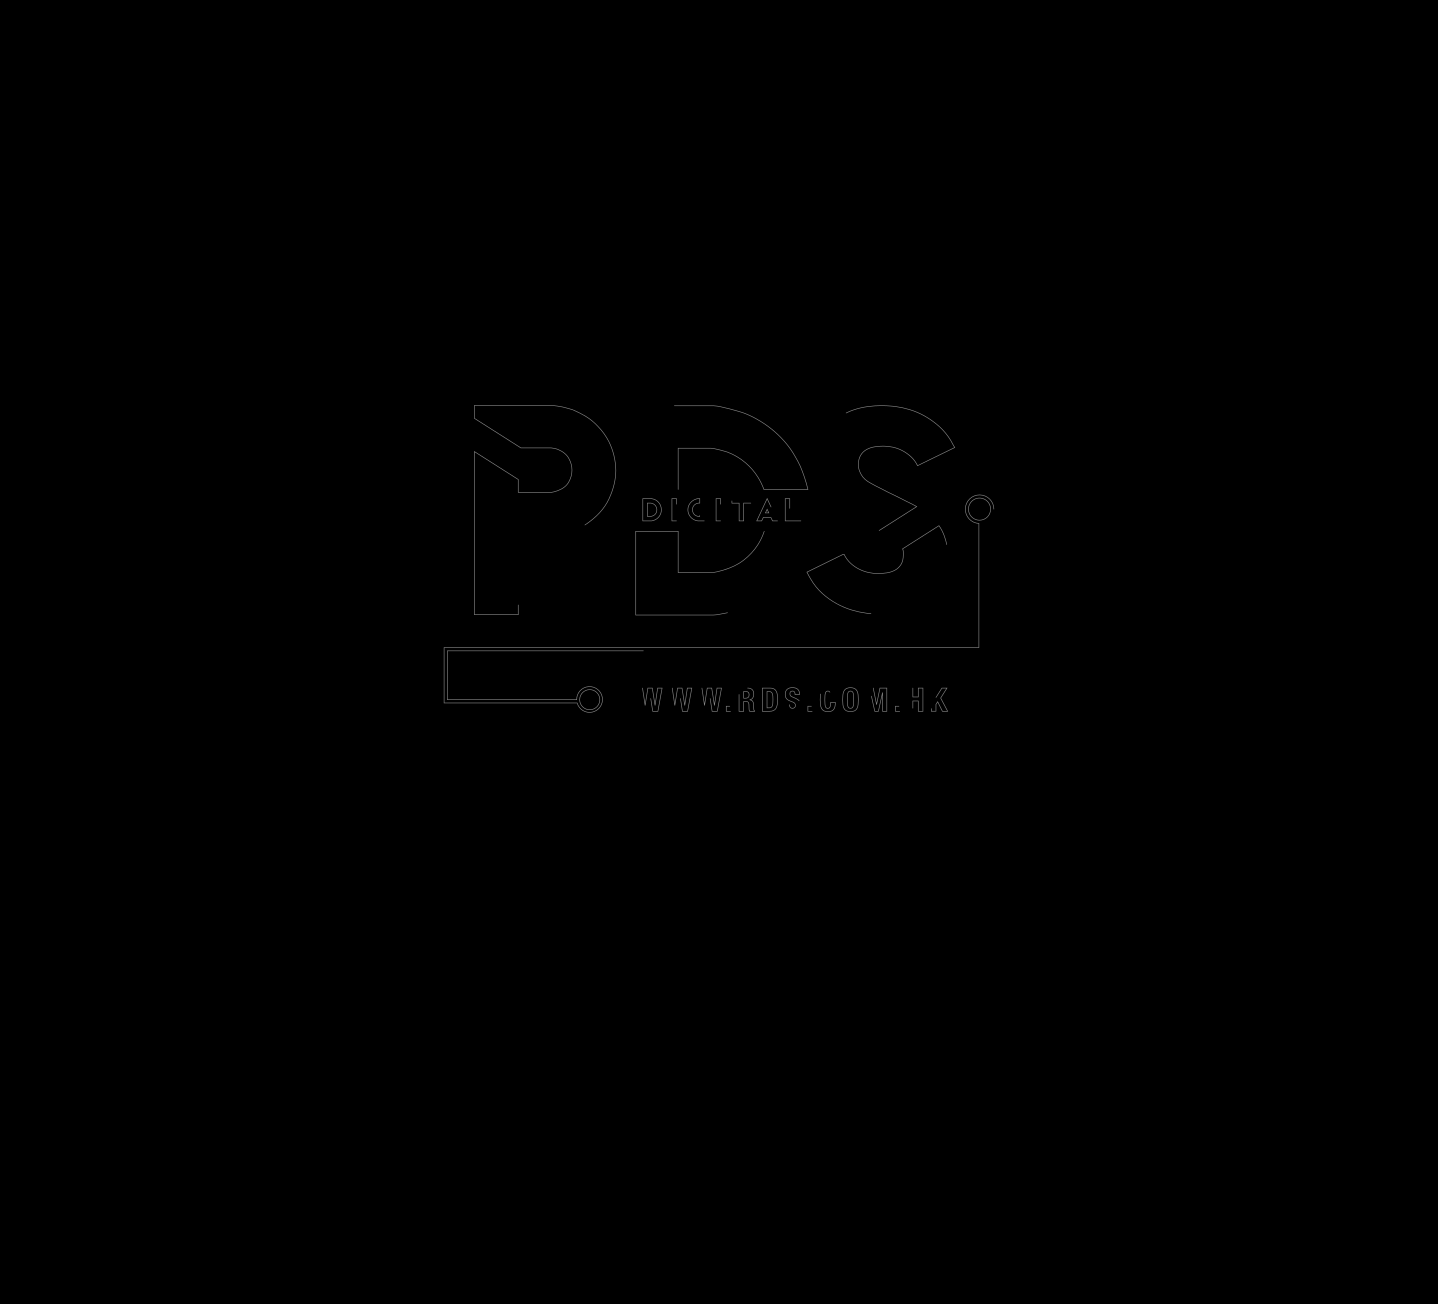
import math
import cairo

surface = cairo.ImageSurface(cairo.FORMAT_RGB24, 1438, 1304)
ctx = cairo.Context(surface)
options = cairo.FontOptions()
options.set_hint_metrics(cairo.HINT_METRICS_OFF)
options.set_hint_style(cairo.HINT_STYLE_NONE)
ctx.set_font_options(options)
ctx.set_miter_limit(4)


def picture(path, x, y, w, h):
    ctx.save()
    ctx.set_source_surface(cairo.ImageSurface.create_from_png(path), x, y)
    ctx.rectangle(x, y, w, h)
    ctx.fill()
    ctx.restore()


ctx.set_source_rgb(0, 0, 0)
ctx.paint()
picture("img1.png", 443, 405, 552, 308)
surface.write_to_png("page.png")
